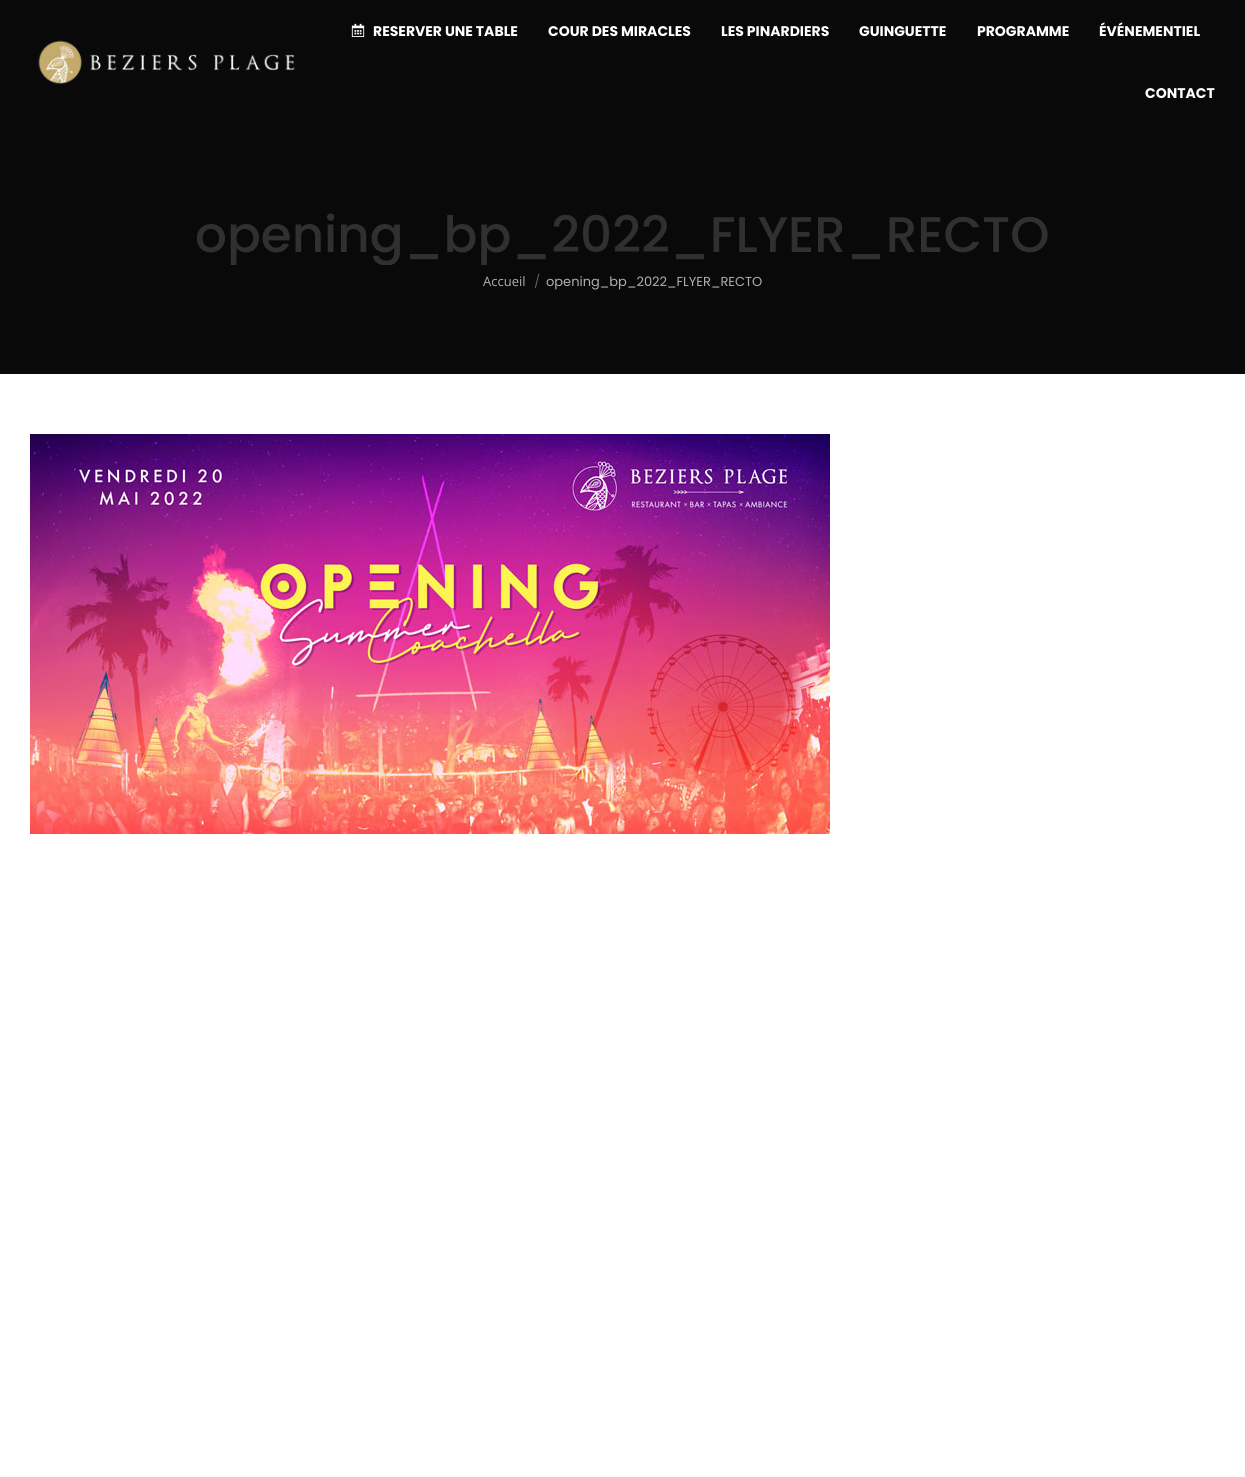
import math
import cairo

surface = cairo.ImageSurface(cairo.FORMAT_RGB24, 1245, 1477)
ctx = cairo.Context(surface)
options = cairo.FontOptions()
options.set_hint_metrics(cairo.HINT_METRICS_OFF)
options.set_hint_style(cairo.HINT_STYLE_NONE)
ctx.set_font_options(options)
ctx.set_miter_limit(4)


def picture(path, x, y, w, h):
    ctx.save()
    ctx.set_source_surface(cairo.ImageSurface.create_from_png(path), x, y)
    ctx.rectangle(x, y, w, h)
    ctx.fill()
    ctx.restore()


ctx.set_source_rgb(1, 1, 1)
ctx.paint()
ctx.set_source_rgb(0.039, 0.039, 0.039)
ctx.rectangle(0, 0, 1245, 374)
ctx.fill()
picture("img1.png", 38, 40, 257, 44)
picture("img2.png", 351, 23, 14, 14)
ctx.select_font_face("Poppins", cairo.FONT_SLANT_NORMAL, cairo.FONT_WEIGHT_BOLD)
ctx.set_font_size(14)
ctx.set_source_rgb(1, 1, 1)
ctx.move_to(373, 36)
ctx.show_text("RESERVER UNE TABLE")
ctx.move_to(548, 36)
ctx.show_text("COUR DES MIRACLES")
ctx.move_to(721, 36)
ctx.show_text("LES PINARDIERS")
ctx.move_to(859, 36)
ctx.show_text("GUINGUETTE")
ctx.move_to(977, 36)
ctx.show_text("PROGRAMME")
ctx.move_to(1099, 36)
ctx.show_text("ÉVÉNEMENTIEL")
ctx.move_to(1145, 98)
ctx.show_text("CONTACT")
ctx.save()
ctx.rectangle(195, 205, 855, 60)
ctx.clip()
ctx.select_font_face("Poppins Medium")
ctx.set_font_size(50)
ctx.set_source_rgb(0.188, 0.188, 0.188)
ctx.move_to(195, 252)
ctx.show_text("opening_bp_2022_FLYER_RECTO")
ctx.restore()
ctx.select_font_face("Open Sans")
ctx.set_font_size(13)
ctx.set_source_rgb(0.678, 0.686, 0.702)
ctx.move_to(483, 286)
ctx.show_text("Accueil")
ctx.select_font_face("Poppins")
ctx.set_source_rgb(0.361, 0.365, 0.373)
ctx.move_to(534, 286)
ctx.show_text("/")
ctx.set_source_rgb(0.678, 0.686, 0.702)
ctx.move_to(546, 286)
ctx.show_text("opening_bp_2022_FLYER_RECTO")
picture("img3.png", 30, 434, 800, 400)
surface.write_to_png("page.png")
